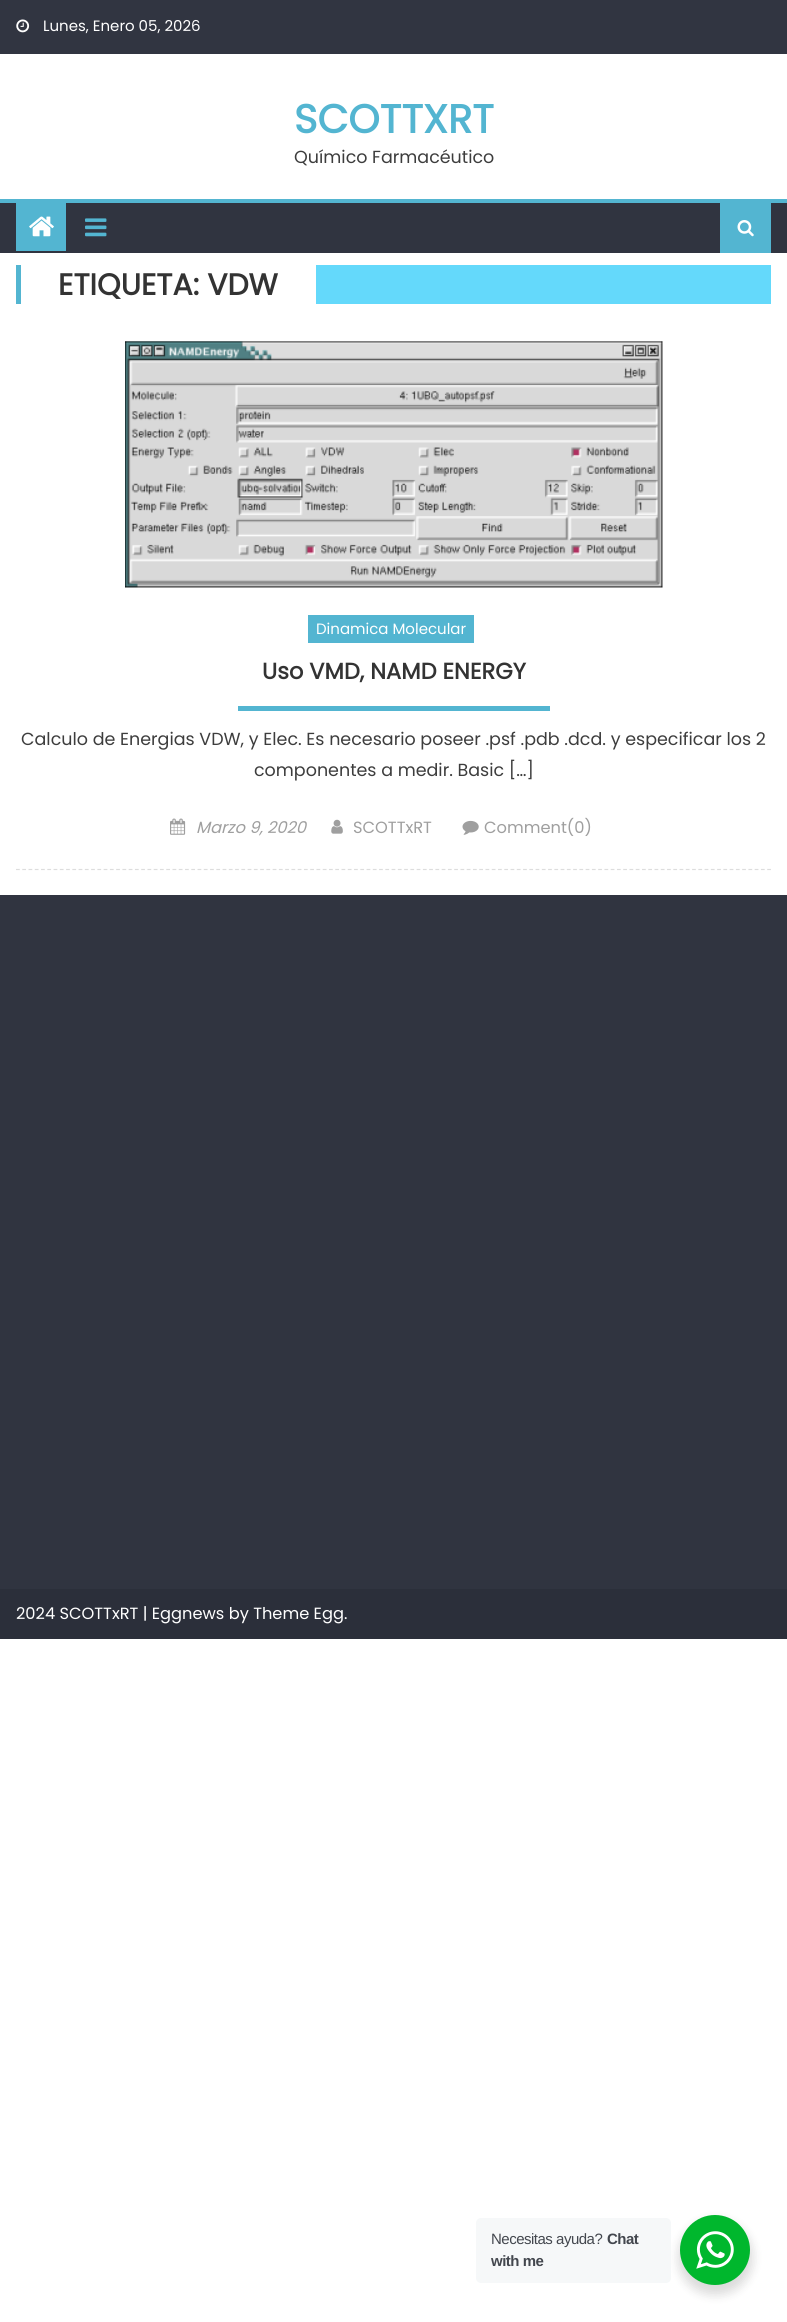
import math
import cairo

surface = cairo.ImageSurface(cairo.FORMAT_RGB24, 787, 2322)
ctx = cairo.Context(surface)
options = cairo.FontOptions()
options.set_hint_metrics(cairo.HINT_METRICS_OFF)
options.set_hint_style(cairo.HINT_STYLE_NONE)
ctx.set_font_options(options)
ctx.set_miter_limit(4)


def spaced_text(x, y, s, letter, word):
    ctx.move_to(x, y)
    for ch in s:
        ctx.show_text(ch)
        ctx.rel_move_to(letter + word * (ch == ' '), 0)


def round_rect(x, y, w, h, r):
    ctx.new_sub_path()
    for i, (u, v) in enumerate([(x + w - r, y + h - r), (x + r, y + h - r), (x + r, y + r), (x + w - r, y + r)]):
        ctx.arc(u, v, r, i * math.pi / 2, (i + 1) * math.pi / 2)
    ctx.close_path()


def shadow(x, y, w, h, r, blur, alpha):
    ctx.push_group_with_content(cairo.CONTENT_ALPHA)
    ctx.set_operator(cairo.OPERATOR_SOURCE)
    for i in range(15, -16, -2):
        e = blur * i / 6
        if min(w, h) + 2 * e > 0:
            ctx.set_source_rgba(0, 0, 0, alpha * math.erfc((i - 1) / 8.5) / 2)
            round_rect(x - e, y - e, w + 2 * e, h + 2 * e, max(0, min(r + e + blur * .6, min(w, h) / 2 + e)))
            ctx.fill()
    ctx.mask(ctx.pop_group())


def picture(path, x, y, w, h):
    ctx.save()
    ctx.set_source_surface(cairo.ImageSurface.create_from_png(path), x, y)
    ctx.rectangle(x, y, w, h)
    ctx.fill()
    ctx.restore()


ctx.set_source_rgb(1, 1, 1)
ctx.paint()
ctx.set_source_rgb(0.192, 0.208, 0.255)
ctx.rectangle(0, 0, 787, 54)
ctx.fill()
picture("img1.png", 16, 19, 14, 14)
ctx.select_font_face("Poppins")
ctx.set_font_size(15)
ctx.set_source_rgb(1, 1, 1)
ctx.move_to(43, 31)
ctx.show_text("Lunes, Enero 05, 2026")
ctx.select_font_face("Poppins", cairo.FONT_SLANT_NORMAL, cairo.FONT_WEIGHT_BOLD)
ctx.set_font_size(40)
ctx.set_source_rgb(0.325, 0.71, 0.82)
ctx.move_to(294, 133)
ctx.show_text("SCOTTXRT")
ctx.select_font_face("Poppins")
ctx.set_font_size(17.5)
ctx.set_source_rgb(0.239, 0.239, 0.239)
ctx.move_to(294, 163)
ctx.show_text("Químico Farmacéutico")
ctx.set_source_rgb(0.188, 0.204, 0.251)
ctx.rectangle(0, 203, 787, 50)
ctx.fill()
ctx.set_source_rgb(0.325, 0.71, 0.82)
ctx.rectangle(0, 199, 787, 4)
ctx.fill()
ctx.rectangle(16, 203, 50, 48)
ctx.fill()
picture("img2.png", 29, 216, 25, 21)
picture("img3.png", 85, 218, 22, 19)
ctx.rectangle(720, 203, 51, 50)
ctx.fill()
picture("img4.png", 737, 220, 17, 17)
ctx.set_source_rgb(0.392, 0.851, 0.984)
ctx.rectangle(316, 265, 455, 39)
ctx.fill()
ctx.set_source_rgb(0.325, 0.71, 0.82)
ctx.rectangle(16, 265, 5, 39)
ctx.fill()
ctx.select_font_face("Poppins", cairo.FONT_SLANT_NORMAL, cairo.FONT_WEIGHT_BOLD)
ctx.set_font_size(30)
ctx.set_source_rgb(0.2, 0.2, 0.2)
ctx.move_to(58, 295)
ctx.show_text("ETIQUETA: VDW")
ctx.new_path()
ctx.move_to(16, 869.5)
ctx.line_to(771, 869.5)
ctx.set_source_rgb(0.867, 0.867, 0.867)
ctx.set_line_width(1.2)
ctx.set_dash([3.75, 2.51])
ctx.stroke()
picture("img5.png", 125, 341, 538, 247)
ctx.set_source_rgb(0.325, 0.71, 0.82)
ctx.rectangle(308, 615, 166, 28)
ctx.fill()
ctx.select_font_face("Poppins")
ctx.set_font_size(15)
ctx.set_source_rgb(1, 1, 1)
ctx.move_to(316, 634)
ctx.show_text("Dinamica Molecular")
ctx.select_font_face("Poppins", cairo.FONT_SLANT_NORMAL, cairo.FONT_WEIGHT_BOLD)
ctx.set_font_size(22.5)
ctx.set_source_rgb(0.2, 0.2, 0.2)
ctx.move_to(262, 679)
ctx.show_text("Uso VMD, NAMD ENERGY")
ctx.set_source_rgb(0.325, 0.71, 0.82)
ctx.rectangle(238, 706, 312, 5)
ctx.fill()
ctx.select_font_face("Poppins")
ctx.set_font_size(17.5)
ctx.set_source_rgb(0.239, 0.239, 0.239)
ctx.move_to(21, 745)
ctx.show_text("Calculo de Energias VDW, y Elec. Es necesario poseer .psf .pdb .dcd. y especificar los 2")
ctx.move_to(254, 776)
ctx.show_text("componentes a medir. Basic […]")
picture("img6.png", 170, 818, 16, 17)
ctx.select_font_face("Poppins", cairo.FONT_SLANT_ITALIC)
ctx.set_font_size(16.25)
ctx.set_source_rgb(0.624, 0.624, 0.624)
ctx.move_to(196, 833)
ctx.show_text("Marzo 9, 2020")
picture("img7.png", 331, 819, 12, 15)
ctx.select_font_face("Poppins")
ctx.move_to(353, 833)
ctx.show_text("SCOTTxRT")
picture("img8.png", 462, 820, 17, 15)
ctx.move_to(484, 833)
ctx.show_text("Comment(0)")
ctx.set_source_rgb(0.188, 0.204, 0.251)
ctx.rectangle(0, 895, 787, 694)
ctx.fill()
ctx.set_source_rgb(0.169, 0.184, 0.227)
ctx.rectangle(0, 1589, 787, 50)
ctx.fill()
ctx.set_source_rgb(1, 1, 1)
ctx.move_to(16, 1619)
ctx.show_text("2024 SCOTTxRT | Eggnews by Theme Egg.")
ctx.set_source_rgb(0, 0, 0)
shadow(678, 2220, 75, 75, 37.5, 5, 0.14)
ctx.set_source_rgb(0.961, 0.969, 0.976)
round_rect(476, 2218, 195, 65, 5)
ctx.fill()
ctx.select_font_face("Liberation Sans")
ctx.set_font_size(15)
ctx.set_source_rgb(0.263, 0.278, 0.306)
spaced_text(491, 2244, "Necesitas ayuda?", -0.5, 0)
ctx.select_font_face("Liberation Sans", cairo.FONT_SLANT_NORMAL, cairo.FONT_WEIGHT_BOLD)
spaced_text(607, 2244, "Chat", -0.5, 0)
spaced_text(491, 2266, "with me", -0.5, 0)
ctx.set_source_rgb(0, 0.718, 0.176)
ctx.new_path()
ctx.arc(715, 2250, 35, 0, 2 * math.pi)
ctx.fill()
picture("img9.png", 696, 2231, 38, 38)
surface.write_to_png("page.png")
